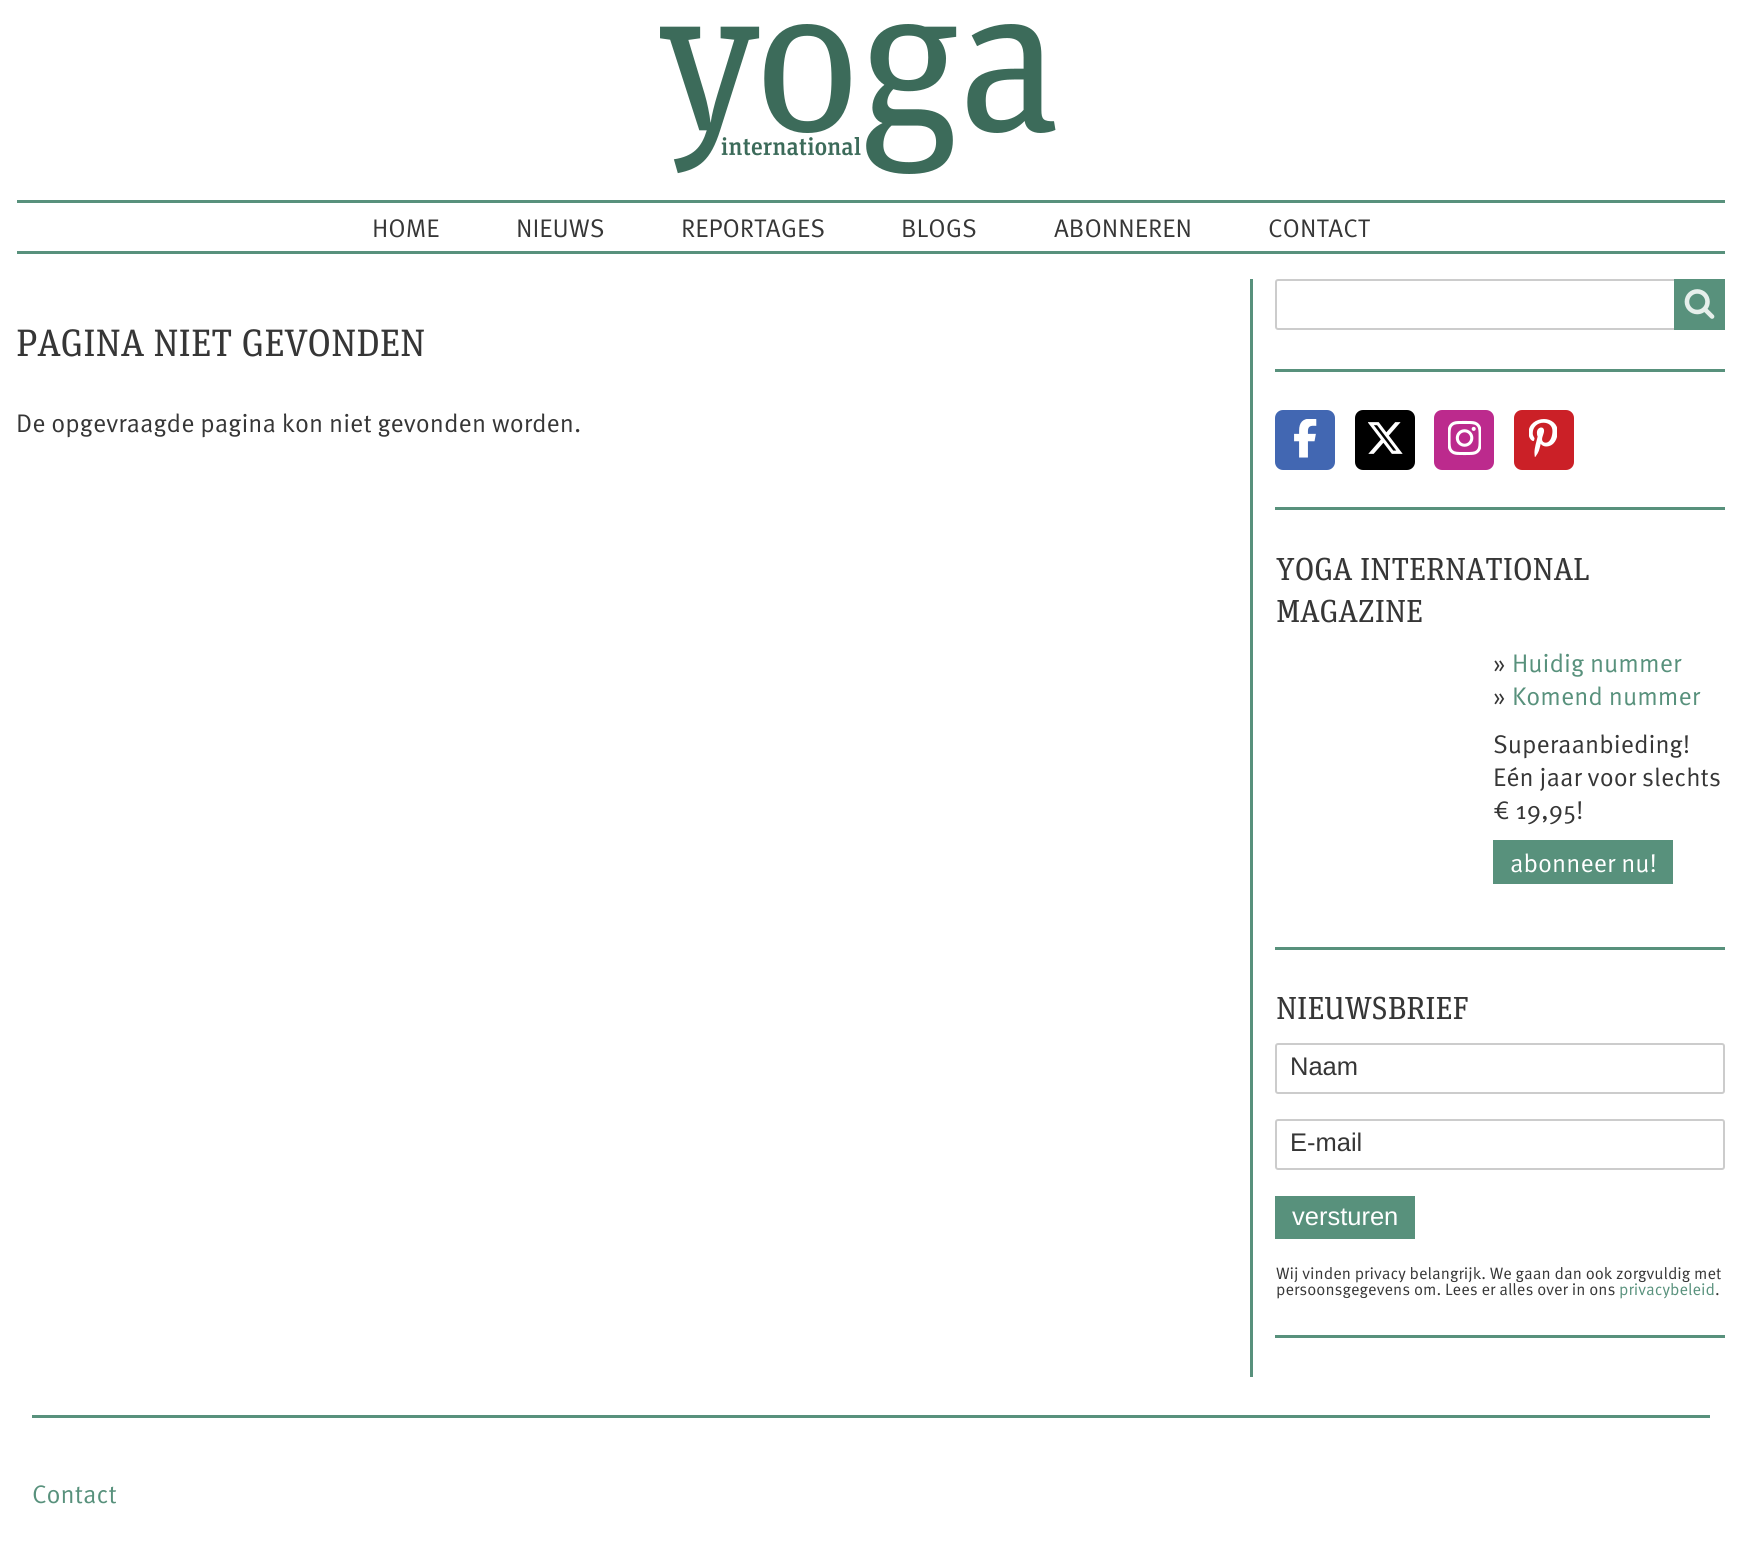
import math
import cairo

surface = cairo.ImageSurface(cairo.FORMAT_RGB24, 1741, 1551)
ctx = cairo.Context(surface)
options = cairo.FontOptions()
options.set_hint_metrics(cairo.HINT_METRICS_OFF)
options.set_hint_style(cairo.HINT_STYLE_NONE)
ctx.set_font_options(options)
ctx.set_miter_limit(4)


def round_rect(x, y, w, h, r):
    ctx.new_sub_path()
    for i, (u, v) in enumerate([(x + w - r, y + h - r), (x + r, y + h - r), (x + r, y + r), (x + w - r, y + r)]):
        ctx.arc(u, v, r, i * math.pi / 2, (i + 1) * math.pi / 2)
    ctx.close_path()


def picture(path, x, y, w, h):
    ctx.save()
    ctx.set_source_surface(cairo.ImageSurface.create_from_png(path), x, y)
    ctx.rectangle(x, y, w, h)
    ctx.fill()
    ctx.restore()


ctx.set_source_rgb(1, 1, 1)
ctx.paint()
picture("img1.png", 660, 24, 396, 150)
ctx.set_source_rgb(0.345, 0.569, 0.486)
ctx.rectangle(17, 200, 1708, 3)
ctx.fill()
ctx.rectangle(17, 251, 1708, 3)
ctx.fill()
ctx.select_font_face("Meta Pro")
ctx.set_font_size(25.5)
ctx.set_source_rgb(0.212, 0.212, 0.212)
ctx.move_to(372, 237)
ctx.show_text("HOME")
ctx.move_to(516, 237)
ctx.show_text("NIEUWS")
ctx.move_to(681, 237)
ctx.show_text("REPORTAGES")
ctx.move_to(901, 237)
ctx.show_text("BLOGS")
ctx.move_to(1054, 237)
ctx.show_text("ABONNEREN")
ctx.move_to(1268, 237)
ctx.show_text("CONTACT")
ctx.set_source_rgb(0.345, 0.569, 0.486)
ctx.rectangle(1250, 279, 3, 1098)
ctx.fill()
ctx.select_font_face("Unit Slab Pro")
ctx.set_font_size(38.25)
ctx.set_source_rgb(0.212, 0.212, 0.212)
ctx.move_to(16, 356)
ctx.show_text("PAGINA NIET GEVONDEN")
ctx.select_font_face("Meta Pro")
ctx.set_font_size(25.5)
ctx.move_to(16, 432)
ctx.show_text("De opgevraagde pagina kon niet gevonden worden.")
ctx.set_source_rgb(0.345, 0.569, 0.486)
ctx.rectangle(1275, 369, 450, 3)
ctx.fill()
round_rect(1276, 280, 448, 49, 2)
ctx.set_source_rgb(0.8, 0.8, 0.8)
ctx.stroke()
ctx.set_source_rgb(0.345, 0.569, 0.486)
ctx.rectangle(1674, 279, 51, 51)
ctx.fill()
picture("img2.png", 1684, 289, 31, 30)
ctx.rectangle(1275, 507, 450, 3)
ctx.fill()
ctx.set_source_rgb(0.259, 0.404, 0.698)
round_rect(1275, 410, 60, 60, 8)
ctx.fill()
picture("img3.png", 1294, 419, 23, 39)
ctx.set_source_rgb(0, 0, 0)
round_rect(1355, 410, 60, 60, 8)
ctx.fill()
picture("img4.png", 1368, 422, 35, 32)
ctx.set_source_rgb(0.737, 0.165, 0.553)
round_rect(1434, 410, 60, 60, 8)
ctx.fill()
picture("img5.png", 1448, 420, 33, 36)
ctx.set_source_rgb(0.796, 0.125, 0.153)
round_rect(1514, 410, 60, 60, 8)
ctx.fill()
picture("img6.png", 1529, 419, 28, 38)
ctx.set_source_rgb(0.345, 0.569, 0.486)
ctx.rectangle(1275, 947, 450, 3)
ctx.fill()
ctx.select_font_face("Unit Slab Pro")
ctx.set_font_size(31.9)
ctx.set_source_rgb(0.212, 0.212, 0.212)
ctx.move_to(1276, 580)
ctx.show_text("YOGA INTERNATIONAL")
ctx.move_to(1276, 622)
ctx.show_text("MAGAZINE")
ctx.select_font_face("Meta Pro")
ctx.set_font_size(25.5)
ctx.move_to(1493, 672)
ctx.show_text("»")
ctx.set_source_rgb(0.345, 0.569, 0.486)
ctx.move_to(1512, 672)
ctx.show_text("Huidig nummer")
ctx.set_source_rgb(0.212, 0.212, 0.212)
ctx.move_to(1493, 705)
ctx.show_text("»")
ctx.set_source_rgb(0.345, 0.569, 0.486)
ctx.move_to(1512, 705)
ctx.show_text("Komend nummer")
ctx.set_source_rgb(0.212, 0.212, 0.212)
ctx.move_to(1493, 753)
ctx.show_text("Superaanbieding!")
ctx.move_to(1493, 786)
ctx.show_text("Eén jaar voor slechts")
ctx.move_to(1493, 819)
ctx.show_text("€ 19,95!")
ctx.set_source_rgb(0.345, 0.569, 0.486)
ctx.rectangle(1493, 840, 180, 44)
ctx.fill()
ctx.set_source_rgb(1, 1, 1)
ctx.move_to(1510, 872)
ctx.show_text("abonneer nu!")
ctx.set_source_rgb(0.345, 0.569, 0.486)
ctx.rectangle(1275, 1335, 450, 3)
ctx.fill()
ctx.select_font_face("Unit Slab Pro")
ctx.set_font_size(31.9)
ctx.set_source_rgb(0.212, 0.212, 0.212)
ctx.move_to(1276, 1019)
ctx.show_text("NIEUWSBRIEF")
round_rect(1276, 1044, 448, 49, 2)
ctx.set_source_rgb(0.8, 0.8, 0.8)
ctx.stroke()
ctx.select_font_face("Liberation Sans")
ctx.set_font_size(25.5)
ctx.set_source_rgb(0.212, 0.212, 0.212)
ctx.move_to(1290, 1075)
ctx.show_text("Naam")
round_rect(1276, 1120, 448, 49, 2)
ctx.set_source_rgb(0.8, 0.8, 0.8)
ctx.stroke()
ctx.set_source_rgb(0.212, 0.212, 0.212)
ctx.move_to(1290, 1151)
ctx.show_text("E-mail")
ctx.set_source_rgb(0.345, 0.569, 0.486)
ctx.rectangle(1275, 1196, 140, 43)
ctx.fill()
ctx.set_source_rgb(1, 1, 1)
ctx.move_to(1292, 1225)
ctx.show_text("versturen")
ctx.select_font_face("Meta Pro")
ctx.set_font_size(16.5)
ctx.set_source_rgb(0.212, 0.212, 0.212)
ctx.move_to(1276, 1279)
ctx.show_text("Wij vinden privacy belangrijk. We gaan dan ook zorgvuldig met")
ctx.move_to(1276, 1295)
ctx.show_text("persoonsgegevens om. Lees er alles over in ons")
ctx.set_source_rgb(0.345, 0.569, 0.486)
ctx.move_to(1619, 1295)
ctx.show_text("privacybeleid")
ctx.set_source_rgb(0.212, 0.212, 0.212)
ctx.move_to(1715, 1295)
ctx.show_text(".")
ctx.set_source_rgb(0.345, 0.569, 0.486)
ctx.rectangle(32, 1415, 1678, 3)
ctx.fill()
ctx.set_font_size(25.5)
ctx.move_to(32, 1503)
ctx.show_text("Contact")
surface.write_to_png("page.png")
